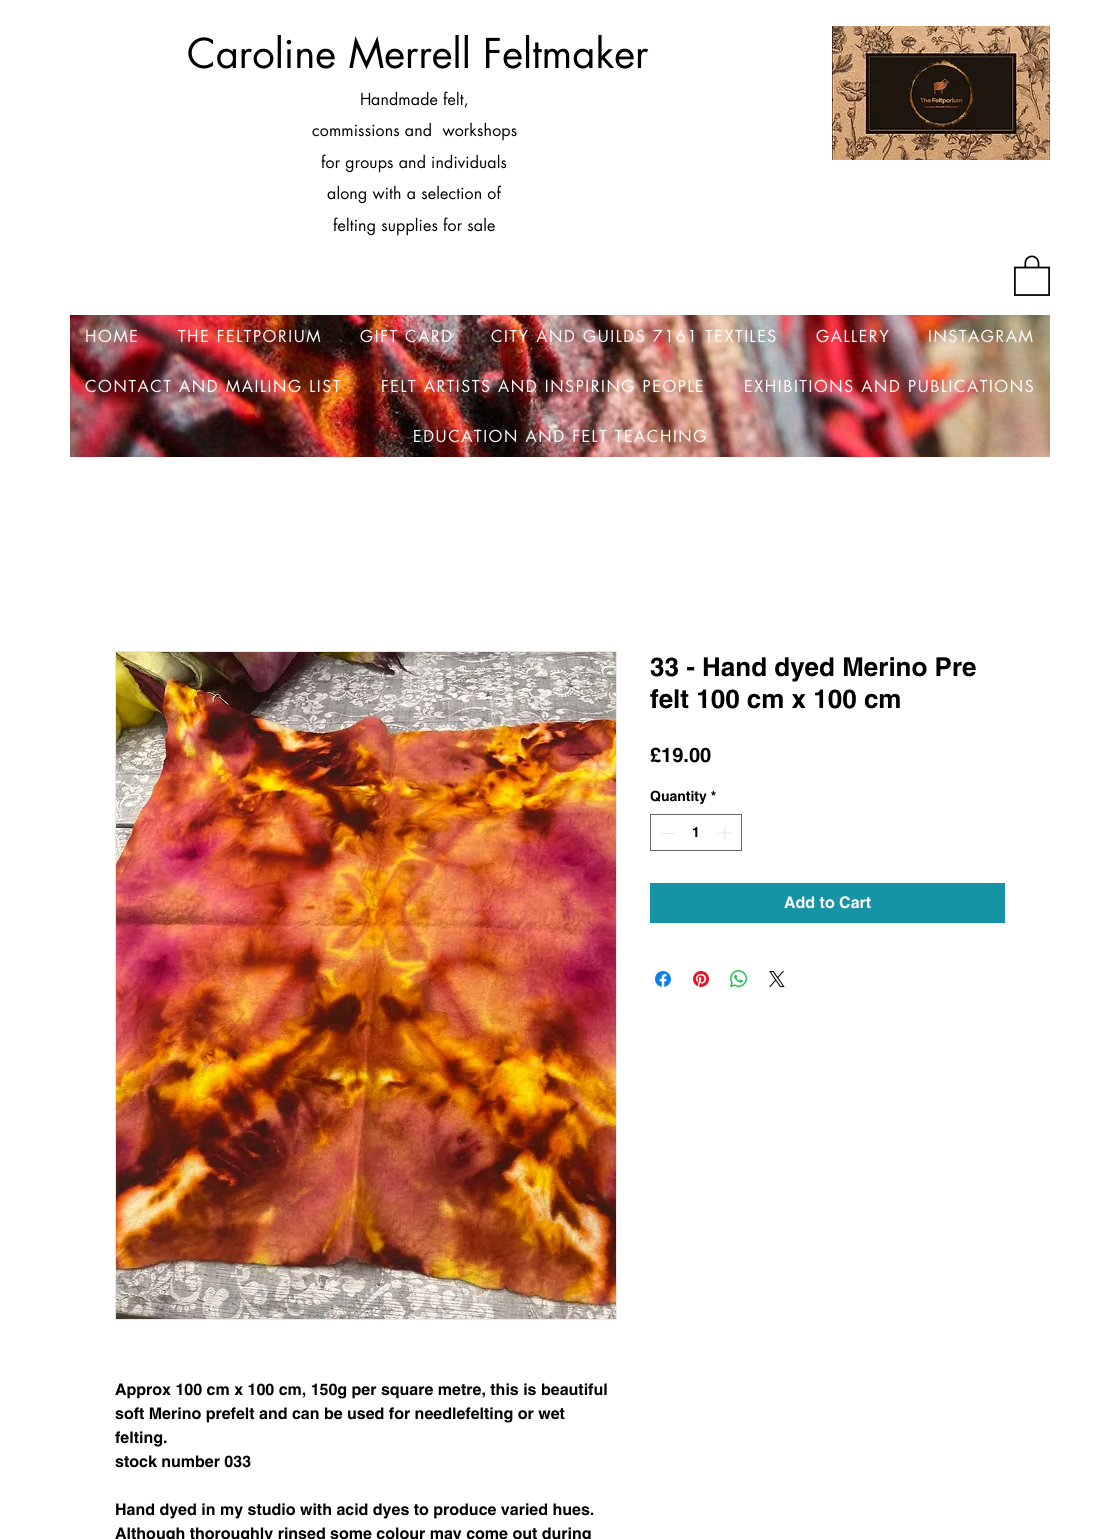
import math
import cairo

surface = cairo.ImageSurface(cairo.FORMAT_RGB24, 1120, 1539)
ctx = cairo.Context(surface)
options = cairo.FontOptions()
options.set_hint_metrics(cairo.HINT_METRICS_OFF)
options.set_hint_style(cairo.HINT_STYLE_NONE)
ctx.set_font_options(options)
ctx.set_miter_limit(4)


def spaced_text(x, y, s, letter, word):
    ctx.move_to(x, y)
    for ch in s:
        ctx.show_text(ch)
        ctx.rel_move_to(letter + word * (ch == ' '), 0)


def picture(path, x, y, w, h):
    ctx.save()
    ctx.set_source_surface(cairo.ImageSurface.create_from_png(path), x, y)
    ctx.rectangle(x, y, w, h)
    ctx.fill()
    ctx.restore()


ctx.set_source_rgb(1, 1, 1)
ctx.paint()
ctx.select_font_face("futura")
ctx.set_font_size(40)
ctx.set_source_rgb(0, 0, 0)
ctx.move_to(187, 68)
ctx.show_text("Caroline Merrell Feltmaker")
picture("img1.png", 832, 26, 218, 134)
ctx.set_font_size(16)
ctx.move_to(360, 105)
ctx.show_text("H")
spaced_text(371, 105, "andmade felt,", 0.15, 0)
spaced_text(312, 136, "commissions and  workshops", 0.15, 0)
spaced_text(321, 168, "for groups and individuals", 0.15, 0)
spaced_text(327, 199, "along with a selection of", 0.15, 0)
spaced_text(333, 231, "felting supplies for sale", 0.15, 0)
picture("img2.png", 1014, 255, 36, 41)
picture("img3.png", 70, 315, 980, 142)
ctx.set_source_rgb(1, 1, 1)
spaced_text(85, 342, "HOME", 1.6, 0)
spaced_text(178, 342, "THE FELTPORIUM", 1.6, 0)
spaced_text(360, 342, "GIFT CARD", 1.6, 0)
spaced_text(491, 342, "CITY AND GUILDS 7161 TEXTILES", 1.6, 0)
spaced_text(816, 342, "GALLERY", 1.6, 0)
spaced_text(928, 342, "INSTAGRAM", 1.6, 0)
spaced_text(85, 392, "CONTACT AND MAILING LIST", 1.6, 0)
spaced_text(381, 392, "FELT ARTISTS AND INSPIRING PEOPLE", 1.6, 0)
spaced_text(744, 392, "EXHIBITIONS AND PUBLICATIONS", 1.6, 0)
spaced_text(413, 442, "EDUCATION AND FELT TEACHING", 1.6, 0)
ctx.select_font_face("helvetica", cairo.FONT_SLANT_NORMAL, cairo.FONT_WEIGHT_BOLD)
ctx.set_font_size(26)
ctx.set_source_rgb(0, 0, 0)
ctx.move_to(650, 676)
ctx.show_text("33 - Hand dyed Merino Pre")
ctx.move_to(650, 708)
ctx.show_text("felt 100 cm x 100 cm")
ctx.set_font_size(20)
ctx.move_to(650, 762)
ctx.show_text("£19.00")
ctx.set_font_size(14)
ctx.move_to(650, 801)
ctx.show_text("Quantity *")
ctx.rectangle(650.5, 814.5, 91, 36)
ctx.set_source_rgb(0.4, 0.4, 0.4)
ctx.set_line_width(1)
ctx.stroke()
ctx.set_source_rgb(0.89, 0.89, 0.89)
ctx.rectangle(662, 833, 13, 1)
ctx.fill()
ctx.set_source_rgb(0, 0, 0)
ctx.move_to(692, 837)
ctx.show_text("1")
picture("img4.png", 718, 826, 14, 14)
ctx.set_source_rgb(0.086, 0.576, 0.647)
ctx.rectangle(650, 883, 355, 40)
ctx.fill()
ctx.set_font_size(16)
ctx.set_source_rgb(1, 1, 1)
ctx.move_to(784, 908)
ctx.show_text("Add to Cart")
picture("img5.png", 655, 971, 16, 16)
picture("img6.png", 693, 971, 16, 16)
picture("img7.png", 730, 970, 17, 17)
picture("img8.png", 769, 971, 16, 16)
ctx.rectangle(115.5, 651.5, 501, 668)
ctx.set_source_rgb(0.91, 0.902, 0.902)
ctx.stroke()
picture("img9.png", 116, 652, 500, 667)
ctx.set_source_rgb(0, 0, 0)
ctx.move_to(115, 1395)
ctx.show_text("Approx 100 cm x 100 cm, 150g per square metre, this is beautiful")
ctx.move_to(115, 1419)
ctx.show_text("soft Merino prefelt and can be used for needlefelting or wet")
ctx.move_to(115, 1443)
ctx.show_text("felting.")
ctx.move_to(115, 1467)
ctx.show_text("stock number 033")
ctx.move_to(115, 1515)
ctx.show_text("Hand dyed in my studio with acid dyes to produce varied hues.")
ctx.move_to(115, 1539)
ctx.show_text("Although thoroughly rinsed some colour may come out during")
surface.write_to_png("page.png")
